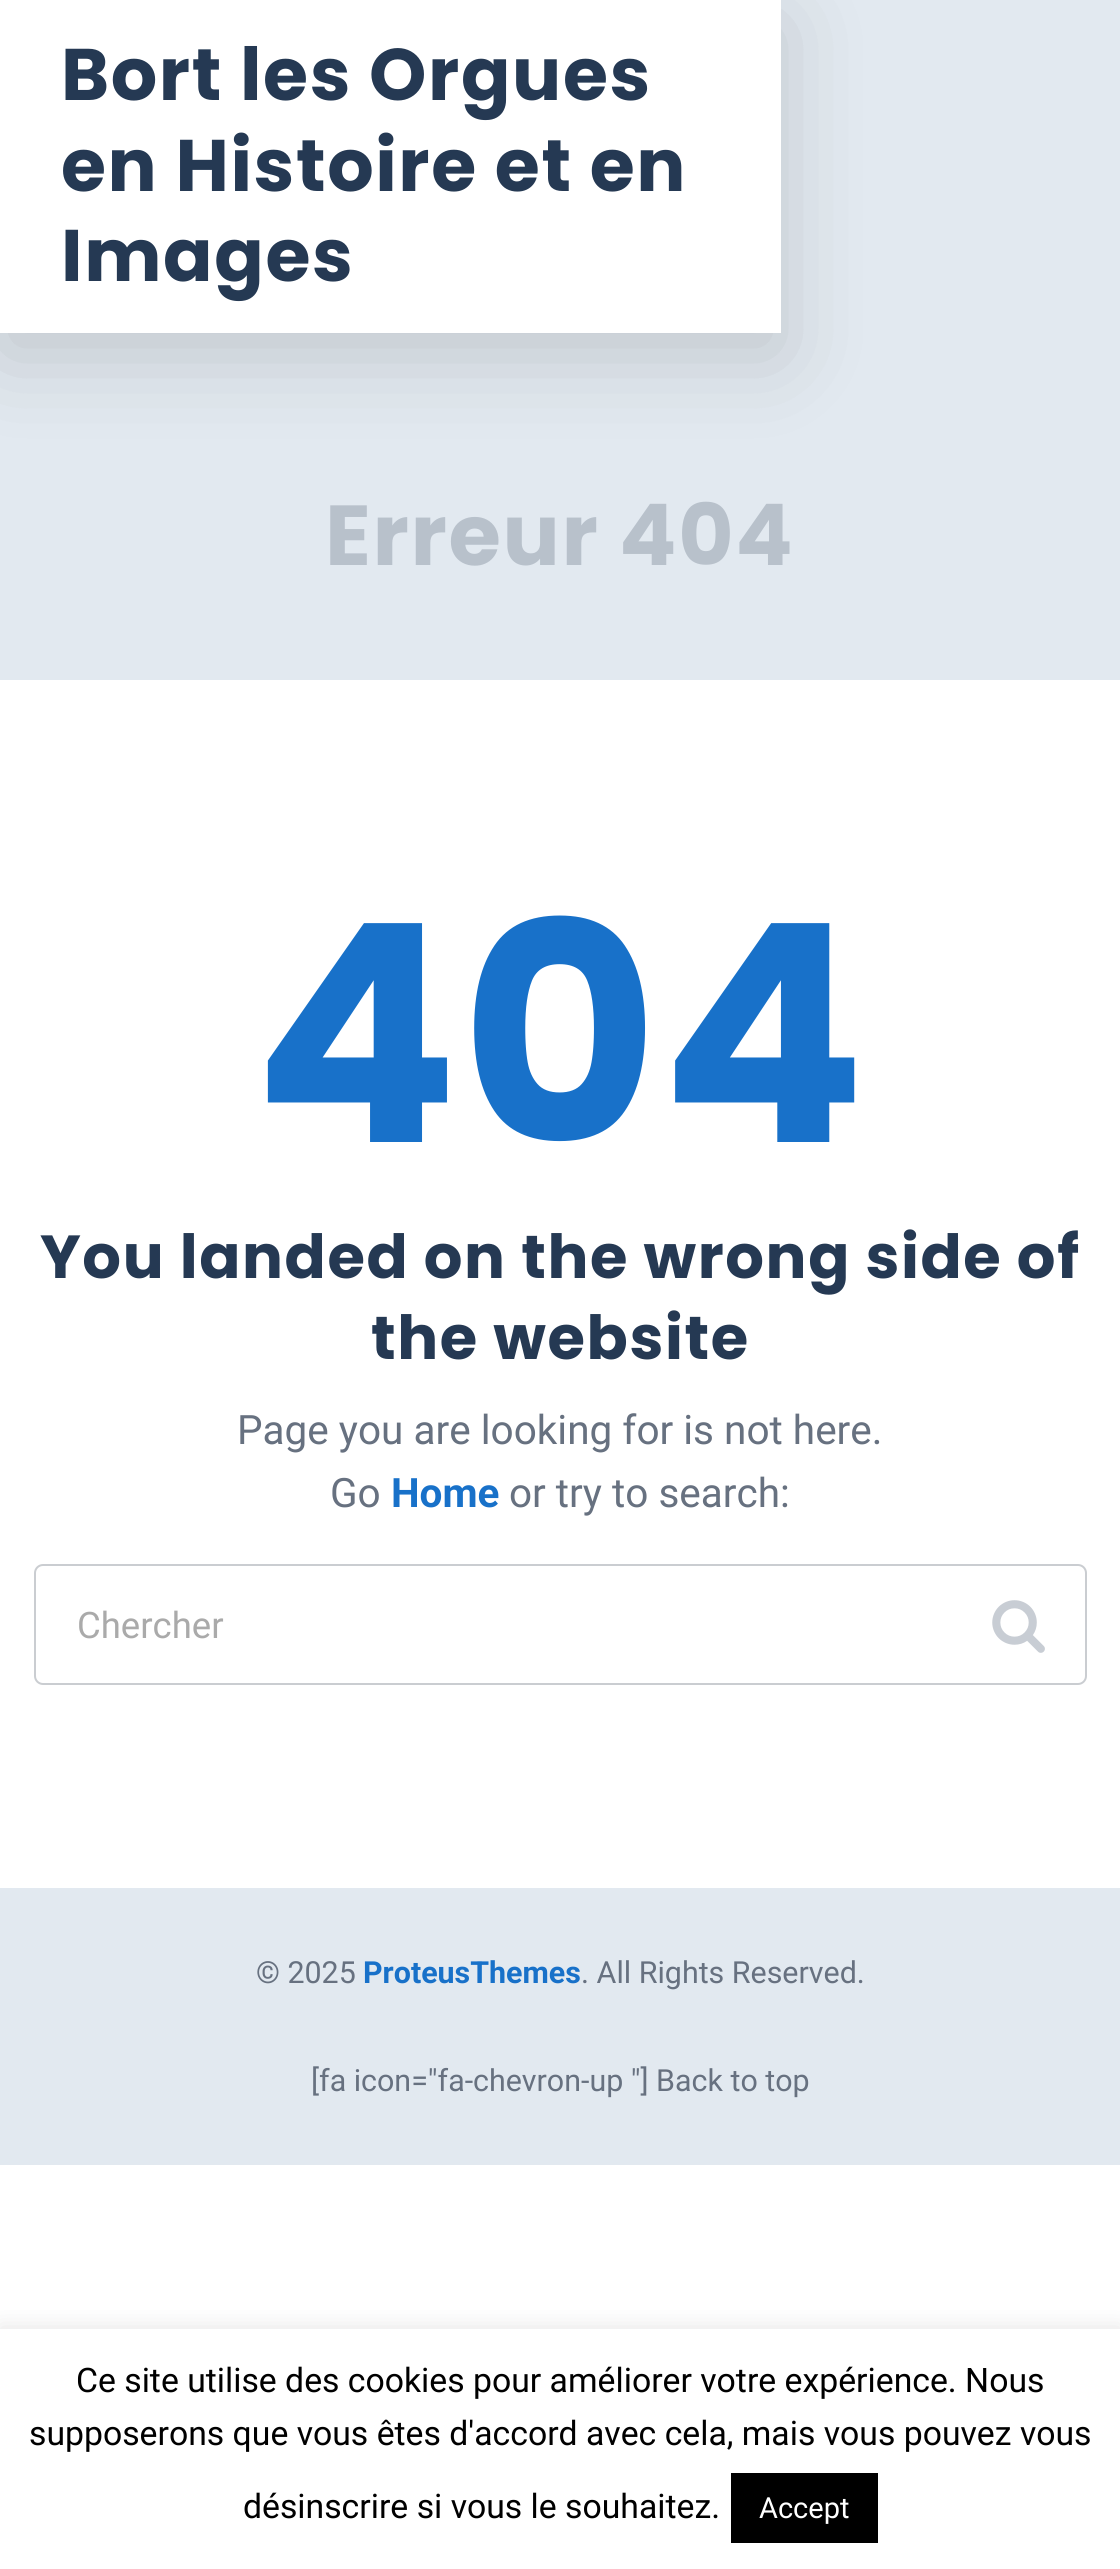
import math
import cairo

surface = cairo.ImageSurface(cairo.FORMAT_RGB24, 1120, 2569)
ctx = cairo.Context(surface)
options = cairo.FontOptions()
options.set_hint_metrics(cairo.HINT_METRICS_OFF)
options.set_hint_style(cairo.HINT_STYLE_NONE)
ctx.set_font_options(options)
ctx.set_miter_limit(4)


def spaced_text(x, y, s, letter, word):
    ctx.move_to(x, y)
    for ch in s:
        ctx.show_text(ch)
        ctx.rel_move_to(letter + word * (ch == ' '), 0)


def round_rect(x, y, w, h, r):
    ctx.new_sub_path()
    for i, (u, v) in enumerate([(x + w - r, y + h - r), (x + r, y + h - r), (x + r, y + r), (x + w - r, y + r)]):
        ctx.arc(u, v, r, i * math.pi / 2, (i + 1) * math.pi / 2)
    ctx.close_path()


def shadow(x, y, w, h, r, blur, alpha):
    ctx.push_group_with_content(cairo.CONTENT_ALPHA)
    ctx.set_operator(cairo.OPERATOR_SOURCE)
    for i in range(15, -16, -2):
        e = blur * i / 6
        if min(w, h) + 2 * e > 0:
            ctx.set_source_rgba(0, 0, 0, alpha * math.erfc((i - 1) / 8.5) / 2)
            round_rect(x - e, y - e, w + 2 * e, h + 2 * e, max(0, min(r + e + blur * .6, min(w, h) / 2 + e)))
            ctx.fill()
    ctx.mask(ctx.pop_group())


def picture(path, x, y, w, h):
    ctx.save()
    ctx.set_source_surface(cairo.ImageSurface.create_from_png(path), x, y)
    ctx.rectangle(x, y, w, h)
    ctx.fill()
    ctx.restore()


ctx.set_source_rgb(1, 1, 1)
ctx.paint()
ctx.set_source_rgb(0.886, 0.914, 0.941)
ctx.rectangle(0, 0, 1120, 680)
ctx.fill()
ctx.set_source_rgb(0, 0, 0)
shadow(0, 23, 781, 333, 0, 45, 0.15)
ctx.set_source_rgb(1, 1, 1)
ctx.rectangle(0, 0, 781, 333)
ctx.fill()
ctx.select_font_face("Poppins", cairo.FONT_SLANT_NORMAL, cairo.FONT_WEIGHT_BOLD)
ctx.set_font_size(73)
ctx.set_source_rgb(0.145, 0.224, 0.325)
spaced_text(61, 100, "Bort les Orgues", 1.6, 0)
spaced_text(61, 191, "en Histoire et en", 1.6, 0)
spaced_text(61, 281, "Images", 1.6, 0)
ctx.set_font_size(85)
ctx.set_source_rgb(0.722, 0.757, 0.796)
spaced_text(325, 565, "Erreur 404", 1.6, 0)
ctx.set_font_size(304)
ctx.set_source_rgb(0.094, 0.443, 0.788)
spaced_text(253, 1142, "404", 1.6, 0)
ctx.set_font_size(60.75)
ctx.set_source_rgb(0.145, 0.224, 0.325)
spaced_text(40, 1278, "You landed on the wrong side of", 1.6, 0)
spaced_text(371, 1359, "the website", 1.6, 0)
ctx.select_font_face("Roboto")
ctx.set_font_size(40.5)
ctx.set_source_rgb(0.404, 0.443, 0.502)
ctx.move_to(237, 1444)
ctx.show_text("Page you are looking for is not here.")
ctx.move_to(330, 1507)
ctx.show_text("Go")
ctx.select_font_face("Roboto", cairo.FONT_SLANT_NORMAL, cairo.FONT_WEIGHT_BOLD)
ctx.set_source_rgb(0.094, 0.443, 0.788)
ctx.move_to(391, 1507)
ctx.show_text("Home")
ctx.select_font_face("Roboto")
ctx.set_source_rgb(0.404, 0.443, 0.502)
ctx.move_to(509, 1507)
ctx.show_text("or try to search:")
round_rect(35, 1565, 1051, 119, 8)
ctx.set_source_rgb(0.792, 0.804, 0.82)
ctx.stroke()
ctx.set_font_size(36.5)
ctx.set_source_rgb(0.667, 0.667, 0.667)
ctx.move_to(77, 1638)
ctx.show_text("Chercher")
picture("img1.png", 992, 1600, 53, 53)
ctx.set_source_rgb(0.886, 0.914, 0.941)
ctx.rectangle(0, 1888, 1120, 277)
ctx.fill()
ctx.set_font_size(30.4)
ctx.set_source_rgb(0.404, 0.443, 0.502)
ctx.move_to(256, 1983)
ctx.show_text("© 2025")
ctx.select_font_face("Roboto", cairo.FONT_SLANT_NORMAL, cairo.FONT_WEIGHT_BOLD)
ctx.set_source_rgb(0.094, 0.443, 0.788)
ctx.move_to(363, 1983)
ctx.show_text("ProteusThemes")
ctx.select_font_face("Roboto")
ctx.set_source_rgb(0.404, 0.443, 0.502)
ctx.move_to(581, 1983)
ctx.show_text(". All Rights Reserved.")
ctx.move_to(311, 2091)
ctx.show_text("[fa icon=\"fa-chevron-up \"] Back to top")
ctx.save()
ctx.rectangle(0, 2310, 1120, 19)
ctx.clip()
ctx.set_source_rgb(0.675, 0.671, 0.671)
shadow(0, 2327, 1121, 240, 0, 11, 0.3)
ctx.restore()
ctx.set_font_size(33.75)
ctx.set_source_rgb(0, 0, 0)
ctx.move_to(76, 2392)
ctx.show_text("Ce site utilise des cookies pour améliorer votre expérience. Nous")
ctx.move_to(29, 2445)
ctx.show_text("supposerons que vous êtes d'accord avec cela, mais vous pouvez vous")
ctx.move_to(243, 2518)
ctx.show_text("désinscrire si vous le souhaitez.")
ctx.rectangle(731, 2473, 147, 70)
ctx.fill()
ctx.set_font_size(29)
ctx.set_source_rgb(1, 1, 1)
ctx.move_to(759, 2518)
ctx.show_text("Accept")
surface.write_to_png("page.png")
